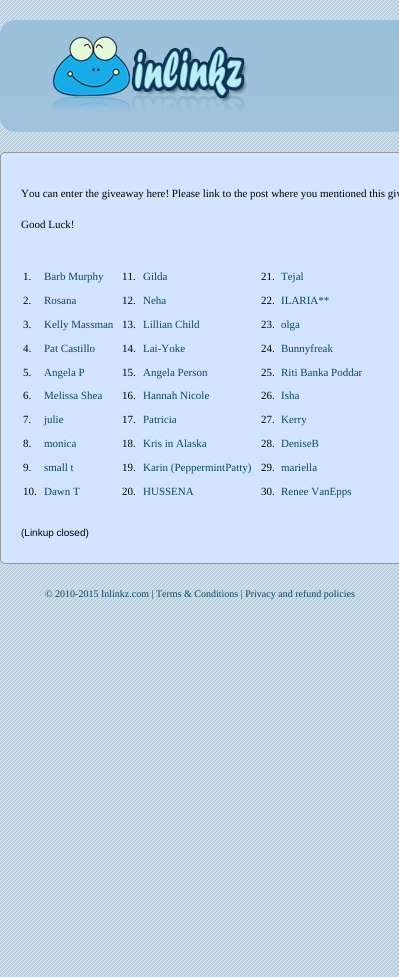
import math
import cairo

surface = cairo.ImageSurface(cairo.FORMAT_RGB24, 399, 977)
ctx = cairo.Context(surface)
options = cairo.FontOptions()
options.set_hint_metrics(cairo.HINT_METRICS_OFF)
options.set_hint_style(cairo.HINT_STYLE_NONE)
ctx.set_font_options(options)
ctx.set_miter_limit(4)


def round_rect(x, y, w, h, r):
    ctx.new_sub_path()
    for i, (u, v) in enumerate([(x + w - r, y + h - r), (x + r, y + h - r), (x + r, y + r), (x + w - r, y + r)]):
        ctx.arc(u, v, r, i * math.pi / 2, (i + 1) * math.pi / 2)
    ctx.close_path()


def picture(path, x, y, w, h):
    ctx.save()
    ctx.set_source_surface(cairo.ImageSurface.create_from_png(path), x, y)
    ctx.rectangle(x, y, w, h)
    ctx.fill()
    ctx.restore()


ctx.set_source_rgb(1, 1, 1)
ctx.paint()
picture("img1.png", 0, 0, 399, 977)
ctx.set_source_rgb(0.776, 0.843, 0.89)
round_rect(0, 20, 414, 112, 15)
ctx.fill()
picture("img2.png", 0, 20, 399, 112)
picture("img3.png", 53, 36, 195, 75)
ctx.set_source_rgb(0.824, 0.894, 1)
round_rect(0, 152, 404, 412, 5)
ctx.fill()
picture("img4.png", 1, 153, 6, 6)
round_rect(0.5, 152.5, 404, 411, 4.5)
ctx.set_source_rgb(0.6, 0.6, 0.6)
ctx.set_line_width(1)
ctx.stroke()
ctx.select_font_face("Liberation Serif")
ctx.set_font_size(11)
ctx.set_source_rgb(0, 0, 0)
ctx.move_to(21, 197)
ctx.show_text("You can enter the giveaway here! Please link to the post where you mentioned this giv")
ctx.move_to(21, 228)
ctx.show_text("Good Luck!")
ctx.move_to(23, 280)
ctx.show_text("1.")
ctx.set_source_rgb(0.047, 0.275, 0.38)
ctx.move_to(44, 280)
ctx.show_text("Barb Murphy")
ctx.set_source_rgb(0, 0, 0)
ctx.move_to(122, 280)
ctx.show_text("11.")
ctx.set_source_rgb(0.047, 0.275, 0.38)
ctx.move_to(143, 280)
ctx.show_text("Gilda")
ctx.set_source_rgb(0, 0, 0)
ctx.move_to(261, 280)
ctx.show_text("21.")
ctx.set_source_rgb(0.047, 0.275, 0.38)
ctx.move_to(281, 280)
ctx.show_text("Tejal")
ctx.set_source_rgb(0, 0, 0)
ctx.move_to(23, 304)
ctx.show_text("2.")
ctx.set_source_rgb(0.047, 0.275, 0.38)
ctx.move_to(44, 304)
ctx.show_text("Rosana")
ctx.set_source_rgb(0, 0, 0)
ctx.move_to(122, 304)
ctx.show_text("12.")
ctx.set_source_rgb(0.047, 0.275, 0.38)
ctx.move_to(143, 304)
ctx.show_text("Neha")
ctx.set_source_rgb(0, 0, 0)
ctx.move_to(261, 304)
ctx.show_text("22.")
ctx.set_source_rgb(0.047, 0.275, 0.38)
ctx.move_to(281, 304)
ctx.show_text("ILARIA**")
ctx.set_source_rgb(0, 0, 0)
ctx.move_to(23, 328)
ctx.show_text("3.")
ctx.set_source_rgb(0.047, 0.275, 0.38)
ctx.move_to(44, 328)
ctx.show_text("Kelly Massman")
ctx.set_source_rgb(0, 0, 0)
ctx.move_to(122, 328)
ctx.show_text("13.")
ctx.set_source_rgb(0.047, 0.275, 0.38)
ctx.move_to(143, 328)
ctx.show_text("Lillian Child")
ctx.set_source_rgb(0, 0, 0)
ctx.move_to(261, 328)
ctx.show_text("23.")
ctx.set_source_rgb(0.047, 0.275, 0.38)
ctx.move_to(281, 328)
ctx.show_text("olga")
ctx.set_source_rgb(0, 0, 0)
ctx.move_to(23, 352)
ctx.show_text("4.")
ctx.set_source_rgb(0.047, 0.275, 0.38)
ctx.move_to(44, 352)
ctx.show_text("Pat Castillo")
ctx.set_source_rgb(0, 0, 0)
ctx.move_to(122, 352)
ctx.show_text("14.")
ctx.set_source_rgb(0.047, 0.275, 0.38)
ctx.move_to(143, 352)
ctx.show_text("Lai-Yoke")
ctx.set_source_rgb(0, 0, 0)
ctx.move_to(261, 352)
ctx.show_text("24.")
ctx.set_source_rgb(0.047, 0.275, 0.38)
ctx.move_to(281, 352)
ctx.show_text("Bunnyfreak")
ctx.set_source_rgb(0, 0, 0)
ctx.move_to(23, 376)
ctx.show_text("5.")
ctx.set_source_rgb(0.047, 0.275, 0.38)
ctx.move_to(44, 376)
ctx.show_text("Angela P")
ctx.set_source_rgb(0, 0, 0)
ctx.move_to(122, 376)
ctx.show_text("15.")
ctx.set_source_rgb(0.047, 0.275, 0.38)
ctx.move_to(143, 376)
ctx.show_text("Angela Person")
ctx.set_source_rgb(0, 0, 0)
ctx.move_to(261, 376)
ctx.show_text("25.")
ctx.set_source_rgb(0.047, 0.275, 0.38)
ctx.move_to(281, 376)
ctx.show_text("Riti Banka Poddar")
ctx.set_source_rgb(0, 0, 0)
ctx.move_to(23, 399)
ctx.show_text("6.")
ctx.set_source_rgb(0.047, 0.275, 0.38)
ctx.move_to(44, 399)
ctx.show_text("Melissa Shea")
ctx.set_source_rgb(0, 0, 0)
ctx.move_to(122, 399)
ctx.show_text("16.")
ctx.set_source_rgb(0.047, 0.275, 0.38)
ctx.move_to(143, 399)
ctx.show_text("Hannah Nicole")
ctx.set_source_rgb(0, 0, 0)
ctx.move_to(261, 399)
ctx.show_text("26.")
ctx.set_source_rgb(0.047, 0.275, 0.38)
ctx.move_to(281, 399)
ctx.show_text("Isha")
ctx.set_source_rgb(0, 0, 0)
ctx.move_to(23, 423)
ctx.show_text("7.")
ctx.set_source_rgb(0.047, 0.275, 0.38)
ctx.move_to(44, 423)
ctx.show_text("julie")
ctx.set_source_rgb(0, 0, 0)
ctx.move_to(122, 423)
ctx.show_text("17.")
ctx.set_source_rgb(0.047, 0.275, 0.38)
ctx.move_to(143, 423)
ctx.show_text("Patricia")
ctx.set_source_rgb(0, 0, 0)
ctx.move_to(261, 423)
ctx.show_text("27.")
ctx.set_source_rgb(0.047, 0.275, 0.38)
ctx.move_to(281, 423)
ctx.show_text("Kerry")
ctx.set_source_rgb(0, 0, 0)
ctx.move_to(23, 447)
ctx.show_text("8.")
ctx.set_source_rgb(0.047, 0.275, 0.38)
ctx.move_to(44, 447)
ctx.show_text("monica")
ctx.set_source_rgb(0, 0, 0)
ctx.move_to(122, 447)
ctx.show_text("18.")
ctx.set_source_rgb(0.047, 0.275, 0.38)
ctx.move_to(143, 447)
ctx.show_text("Kris in Alaska")
ctx.set_source_rgb(0, 0, 0)
ctx.move_to(261, 447)
ctx.show_text("28.")
ctx.set_source_rgb(0.047, 0.275, 0.38)
ctx.move_to(281, 447)
ctx.show_text("DeniseB")
ctx.set_source_rgb(0, 0, 0)
ctx.move_to(23, 471)
ctx.show_text("9.")
ctx.set_source_rgb(0.047, 0.275, 0.38)
ctx.move_to(44, 471)
ctx.show_text("small t")
ctx.set_source_rgb(0, 0, 0)
ctx.move_to(122, 471)
ctx.show_text("19.")
ctx.set_source_rgb(0.047, 0.275, 0.38)
ctx.move_to(143, 471)
ctx.show_text("Karin (PeppermintPatty)")
ctx.set_source_rgb(0, 0, 0)
ctx.move_to(261, 471)
ctx.show_text("29.")
ctx.set_source_rgb(0.047, 0.275, 0.38)
ctx.move_to(281, 471)
ctx.show_text("mariella")
ctx.set_source_rgb(0, 0, 0)
ctx.move_to(23, 495)
ctx.show_text("10.")
ctx.set_source_rgb(0.047, 0.275, 0.38)
ctx.move_to(44, 495)
ctx.show_text("Dawn T")
ctx.set_source_rgb(0, 0, 0)
ctx.move_to(122, 495)
ctx.show_text("20.")
ctx.set_source_rgb(0.047, 0.275, 0.38)
ctx.move_to(143, 495)
ctx.show_text("HUSSENA")
ctx.set_source_rgb(0, 0, 0)
ctx.move_to(261, 495)
ctx.show_text("30.")
ctx.set_source_rgb(0.047, 0.275, 0.38)
ctx.move_to(281, 495)
ctx.show_text("Renee VanEpps")
ctx.select_font_face("Liberation Sans")
ctx.set_font_size(10)
ctx.set_source_rgb(0, 0, 0)
ctx.move_to(21, 536)
ctx.show_text("(Linkup closed)")
ctx.select_font_face("Liberation Serif")
ctx.set_source_rgb(0.047, 0.275, 0.38)
ctx.move_to(45, 597)
ctx.show_text("© 2010-2015 Inlinkz.com | Terms & Conditions | Privacy and refund policies")
surface.write_to_png("page.png")
